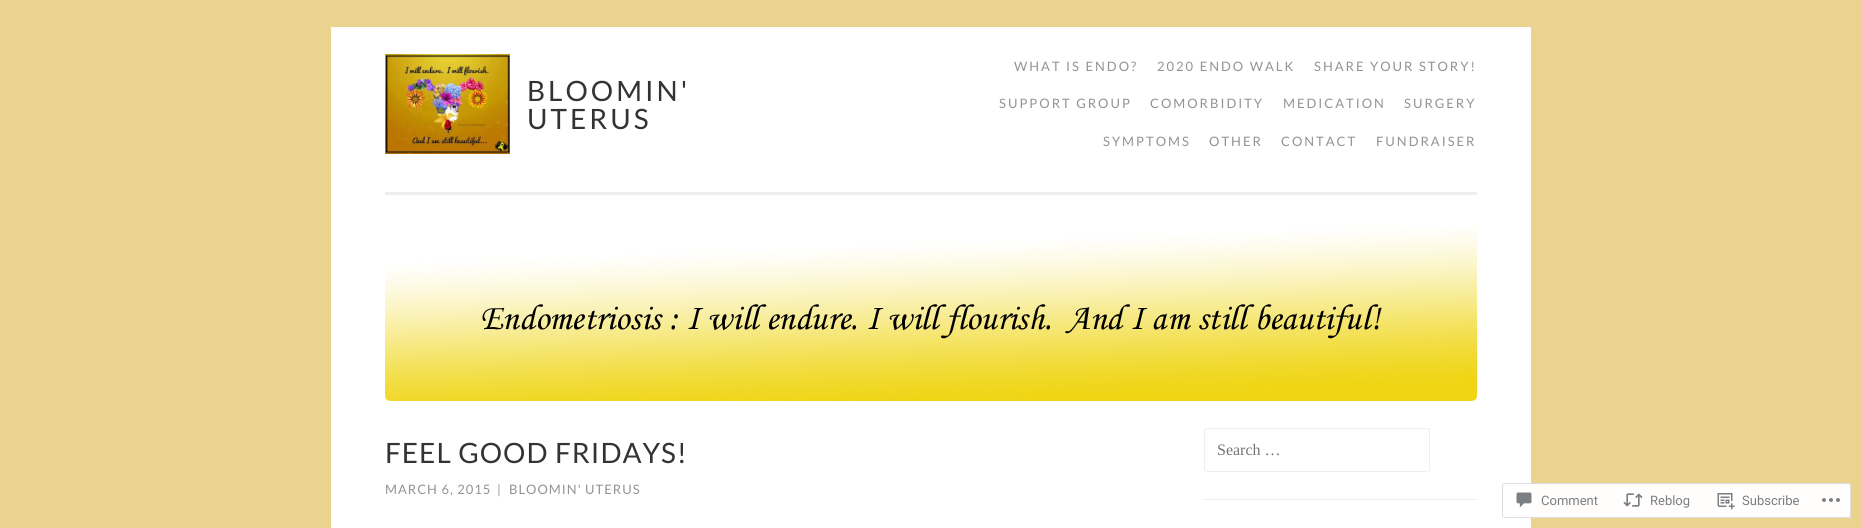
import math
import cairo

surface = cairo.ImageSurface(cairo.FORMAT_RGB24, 1861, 528)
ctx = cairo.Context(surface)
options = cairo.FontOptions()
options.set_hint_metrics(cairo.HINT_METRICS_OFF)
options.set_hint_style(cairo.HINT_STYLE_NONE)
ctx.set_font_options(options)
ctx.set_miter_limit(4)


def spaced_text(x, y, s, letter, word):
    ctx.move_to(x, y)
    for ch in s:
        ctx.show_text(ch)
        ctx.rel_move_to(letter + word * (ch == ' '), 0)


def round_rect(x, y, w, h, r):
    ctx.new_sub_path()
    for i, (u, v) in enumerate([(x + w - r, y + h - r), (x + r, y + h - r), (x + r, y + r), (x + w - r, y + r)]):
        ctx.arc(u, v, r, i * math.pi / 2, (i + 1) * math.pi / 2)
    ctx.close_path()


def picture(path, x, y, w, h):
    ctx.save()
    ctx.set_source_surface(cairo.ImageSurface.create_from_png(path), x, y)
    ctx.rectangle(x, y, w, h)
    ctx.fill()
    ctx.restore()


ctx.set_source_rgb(0.925, 0.824, 0.561)
ctx.paint()
ctx.set_source_rgb(1, 1, 1)
ctx.rectangle(331, 27, 1200, 501)
ctx.fill()
ctx.set_source_rgb(0.933, 0.933, 0.933)
ctx.rectangle(385, 192, 1092, 3)
ctx.fill()
picture("img1.png", 385, 54, 125, 100)
ctx.select_font_face("Lato")
ctx.set_font_size(28)
ctx.set_source_rgb(0.2, 0.2, 0.2)
spaced_text(527, 101, "BLOOMIN'", 3, 0)
spaced_text(527, 129, "UTERUS", 3, 0)
ctx.set_font_size(13)
ctx.set_source_rgb(0.576, 0.576, 0.576)
spaced_text(1014, 71, "WHAT IS ENDO?", 2, 0)
spaced_text(1157, 71, "2020 ENDO WALK", 2, 0)
spaced_text(1314, 71, "SHARE YOUR STORY!", 2, 0)
spaced_text(999, 108, "SUPPORT GROUP", 2, 0)
spaced_text(1150, 108, "COMORBIDITY", 2, 0)
spaced_text(1283, 108, "MEDICATION", 2, 0)
spaced_text(1404, 108, "SURGERY", 2, 0)
spaced_text(1103, 146, "SYMPTOMS", 2, 0)
spaced_text(1209, 146, "OTHER", 2, 0)
spaced_text(1281, 146, "CONTACT", 2, 0)
spaced_text(1376, 146, "FUNDRAISER", 2, 0)
picture("img2.png", 385, 225, 1092, 176)
ctx.set_font_size(28)
ctx.set_source_rgb(0.2, 0.2, 0.2)
spaced_text(385, 463, "FEEL GOOD FRIDAYS!", 1, 0)
ctx.set_font_size(13)
ctx.set_source_rgb(0.576, 0.576, 0.576)
spaced_text(385, 494, "MARCH 6, 2015", 1, 0)
ctx.set_source_rgb(0.6, 0.6, 0.6)
spaced_text(497, 494, "|", 1, 0)
ctx.set_source_rgb(0.576, 0.576, 0.576)
spaced_text(509, 494, "BLOOMIN' UTERUS", 1, 0)
ctx.set_source_rgb(0.933, 0.933, 0.933)
ctx.rectangle(1204, 499, 273, 1)
ctx.fill()
round_rect(1204.5, 428.5, 225, 43, 2.5)
ctx.set_line_width(1)
ctx.stroke()
ctx.select_font_face("Liberation Serif")
ctx.set_font_size(16)
ctx.set_source_rgb(0.459, 0.459, 0.459)
ctx.move_to(1217, 455)
ctx.show_text("Search …")
ctx.set_source_rgba(1, 1, 1, 0.98)
round_rect(1502, 483, 349, 35, 3)
ctx.fill()
round_rect(1502.5, 483.5, 348, 34, 2.5)
ctx.set_source_rgba(0.863, 0.863, 0.871, 0.98)
ctx.stroke()
picture("img3.png", 1516, 492, 16, 16)
ctx.select_font_face("Roboto")
ctx.set_font_size(13)
ctx.set_source_rgb(0.478, 0.494, 0.51)
ctx.move_to(1541, 505)
ctx.show_text("Comment")
picture("img4.png", 1623, 493, 20, 14)
ctx.move_to(1650, 505)
ctx.show_text("Reblog")
picture("img5.png", 1717, 493, 18, 17)
ctx.move_to(1742, 505)
ctx.show_text("Subscribe")
picture("img6.png", 1822, 498, 18, 4)
surface.write_to_png("page.png")
